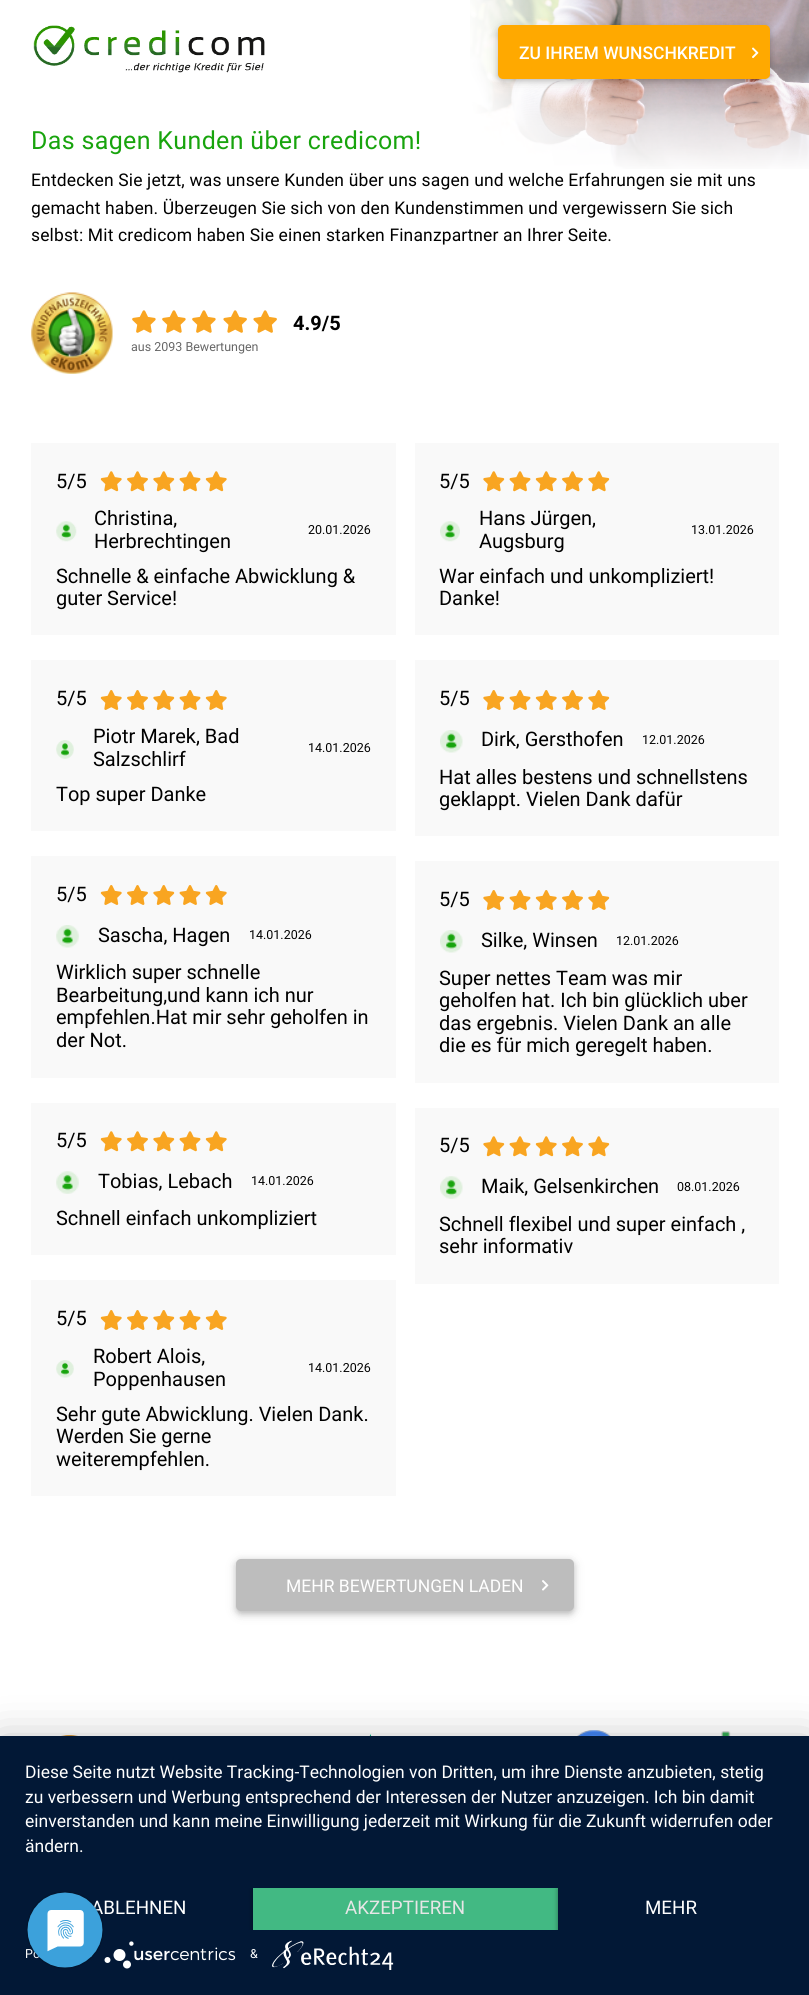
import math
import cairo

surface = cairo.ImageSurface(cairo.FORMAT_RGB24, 809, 1995)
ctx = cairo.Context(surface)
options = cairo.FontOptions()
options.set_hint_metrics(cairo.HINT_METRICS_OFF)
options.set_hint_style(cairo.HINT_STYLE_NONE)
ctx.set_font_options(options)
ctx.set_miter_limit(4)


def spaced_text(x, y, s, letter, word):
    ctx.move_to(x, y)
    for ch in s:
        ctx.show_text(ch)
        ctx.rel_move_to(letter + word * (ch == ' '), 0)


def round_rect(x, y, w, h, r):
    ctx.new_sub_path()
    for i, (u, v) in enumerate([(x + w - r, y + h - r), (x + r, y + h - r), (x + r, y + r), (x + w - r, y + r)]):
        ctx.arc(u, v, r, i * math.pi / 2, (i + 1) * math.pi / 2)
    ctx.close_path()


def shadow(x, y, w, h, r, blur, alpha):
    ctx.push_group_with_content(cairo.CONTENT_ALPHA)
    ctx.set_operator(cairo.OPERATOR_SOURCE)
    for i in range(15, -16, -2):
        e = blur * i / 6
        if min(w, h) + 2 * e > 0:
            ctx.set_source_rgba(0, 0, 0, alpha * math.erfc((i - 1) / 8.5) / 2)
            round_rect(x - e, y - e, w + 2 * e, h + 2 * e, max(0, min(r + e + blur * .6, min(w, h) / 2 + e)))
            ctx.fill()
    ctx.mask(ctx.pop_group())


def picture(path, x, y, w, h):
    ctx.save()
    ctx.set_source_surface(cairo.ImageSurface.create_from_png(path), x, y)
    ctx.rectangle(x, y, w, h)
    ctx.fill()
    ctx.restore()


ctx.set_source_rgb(1, 1, 1)
ctx.paint()
picture("img1.png", 33, 25, 232, 48)
picture("img3.png", 470, 0, 339, 169)
ctx.set_source_rgb(0, 0, 0)
shadow(498, 28, 272, 53, 5, 6, 0.1)
shadow(498, 28, 272, 53, 5, 3, 0.2)
ctx.set_source_rgb(1, 0.663, 0)
round_rect(498, 25, 272, 54, 5)
ctx.fill()
ctx.select_font_face("Roboto Medium")
ctx.set_font_size(17.5)
ctx.set_source_rgb(1, 1, 1)
ctx.move_to(519, 59)
ctx.show_text("ZU IHREM WUNSCHKREDIT")
picture("img2.png", 752, 47, 7, 12)
ctx.select_font_face("Roboto")
ctx.set_font_size(25)
ctx.set_source_rgb(0.094, 0.643, 0.051)
spaced_text(31, 149, "Das sagen Kunden über credicom!", 0.35, 0)
ctx.set_font_size(17.5)
ctx.set_source_rgb(0, 0, 0)
spaced_text(31, 186, "Entdecken Sie jetzt, was unsere Kunden über uns sagen und welche Erfahrungen sie mit uns", 0.15, 0)
spaced_text(31, 214, "gemacht haben. Überzeugen Sie sich von den Kundenstimmen und vergewissern Sie sich", 0.15, 0)
spaced_text(31, 241, "selbst: Mit credicom haben Sie einen starken Finanzpartner an Ihrer Seite.", 0.15, 0)
picture("img4.png", 31, 292, 82, 82)
picture("img5.png", 132, 310, 24, 23)
picture("img5.png", 162, 310, 24, 23)
picture("img5.png", 192, 310, 24, 23)
picture("img6.png", 223, 310, 24, 23)
picture("img6.png", 253, 310, 24, 23)
ctx.select_font_face("Roboto", cairo.FONT_SLANT_NORMAL, cairo.FONT_WEIGHT_BOLD)
ctx.set_font_size(20)
ctx.move_to(293, 330)
ctx.show_text("4.9/5")
ctx.select_font_face("Roboto")
ctx.set_font_size(12.5)
ctx.set_source_rgb(0.4, 0.4, 0.4)
ctx.move_to(131, 351)
ctx.show_text("aus 2093 Bewertungen")
ctx.set_source_rgb(0.976, 0.976, 0.976)
ctx.rectangle(31, 443, 365, 192)
ctx.fill()
ctx.set_font_size(20)
ctx.set_source_rgb(0, 0, 0)
ctx.move_to(56, 488)
ctx.show_text("5/5")
picture("img7.png", 100, 471, 22, 21)
picture("img8.png", 127, 471, 21, 21)
picture("img9.png", 153, 471, 22, 21)
picture("img10.png", 179, 471, 22, 21)
picture("img7.png", 205, 471, 22, 21)
picture("img11.png", 56, 521, 21, 21)
ctx.move_to(94, 525)
ctx.show_text("Christina,")
ctx.move_to(94, 548)
ctx.show_text("Herbrechtingen")
ctx.set_font_size(12.5)
ctx.move_to(308, 534)
ctx.show_text("20.01.2026")
ctx.set_font_size(20)
ctx.move_to(56, 583)
ctx.show_text("Schnelle & einfache Abwicklung &")
ctx.move_to(56, 605)
ctx.show_text("guter Service!")
ctx.set_source_rgb(0.976, 0.976, 0.976)
ctx.rectangle(415, 443, 364, 192)
ctx.fill()
ctx.set_source_rgb(0, 0, 0)
ctx.move_to(439, 488)
ctx.show_text("5/5")
picture("img9.png", 483, 471, 22, 21)
picture("img10.png", 509, 471, 22, 21)
picture("img7.png", 535, 471, 22, 21)
picture("img8.png", 562, 471, 21, 21)
picture("img9.png", 588, 471, 22, 21)
picture("img12.png", 440, 521, 20, 21)
ctx.move_to(479, 525)
ctx.show_text("Hans Jürgen,")
ctx.move_to(479, 548)
ctx.show_text("Augsburg")
ctx.set_font_size(12.5)
ctx.move_to(691, 534)
ctx.show_text("13.01.2026")
ctx.set_font_size(20)
ctx.move_to(439, 583)
ctx.show_text("War einfach und unkompliziert!")
ctx.move_to(439, 605)
ctx.show_text("Danke!")
ctx.set_source_rgb(0.976, 0.976, 0.976)
ctx.rectangle(31, 660, 365, 171)
ctx.fill()
ctx.set_source_rgb(0, 0, 0)
ctx.move_to(56, 705)
ctx.show_text("5/5")
picture("img13.png", 100, 690, 22, 20)
picture("img14.png", 127, 690, 21, 20)
picture("img15.png", 153, 690, 22, 20)
picture("img16.png", 179, 690, 22, 20)
picture("img13.png", 205, 690, 22, 20)
picture("img17.png", 56, 740, 18, 19)
ctx.move_to(93, 743)
ctx.show_text("Piotr Marek, Bad")
ctx.move_to(93, 766)
ctx.show_text("Salzschlirf")
ctx.set_font_size(12.5)
ctx.move_to(308, 752)
ctx.show_text("14.01.2026")
ctx.set_font_size(20)
ctx.move_to(56, 801)
ctx.show_text("Top super Danke")
ctx.set_source_rgb(0.976, 0.976, 0.976)
ctx.rectangle(415, 660, 364, 176)
ctx.fill()
ctx.set_source_rgb(0, 0, 0)
ctx.move_to(439, 705)
ctx.show_text("5/5")
picture("img15.png", 483, 690, 22, 20)
picture("img16.png", 509, 690, 22, 20)
picture("img13.png", 535, 690, 22, 20)
picture("img14.png", 562, 690, 21, 20)
picture("img15.png", 588, 690, 22, 20)
picture("img18.png", 440, 730, 23, 23)
ctx.move_to(481, 746)
ctx.show_text("Dirk, Gersthofen")
ctx.set_font_size(12.5)
ctx.move_to(642, 744)
ctx.show_text("12.01.2026")
ctx.set_font_size(20)
ctx.move_to(439, 784)
ctx.show_text("Hat alles bestens und schnellstens")
ctx.move_to(439, 806)
ctx.show_text("geklappt. Vielen Dank dafür")
ctx.set_source_rgb(0.976, 0.976, 0.976)
ctx.rectangle(31, 856, 365, 222)
ctx.fill()
ctx.set_source_rgb(0, 0, 0)
ctx.move_to(56, 901)
ctx.show_text("5/5")
picture("img13.png", 100, 885, 22, 20)
picture("img14.png", 127, 885, 21, 20)
picture("img15.png", 153, 885, 22, 20)
picture("img16.png", 179, 885, 22, 20)
picture("img13.png", 205, 885, 22, 20)
picture("img19.png", 56, 925, 23, 23)
ctx.move_to(98, 942)
ctx.show_text("Sascha, Hagen")
ctx.set_font_size(12.5)
ctx.move_to(249, 939)
ctx.show_text("14.01.2026")
ctx.set_font_size(20)
ctx.move_to(56, 979)
ctx.show_text("Wirklich super schnelle")
ctx.move_to(56, 1002)
ctx.show_text("Bearbeitung,und kann ich nur")
ctx.move_to(56, 1024)
ctx.show_text("empfehlen.Hat mir sehr geholfen in")
ctx.move_to(56, 1047)
ctx.show_text("der Not.")
ctx.set_source_rgb(0.976, 0.976, 0.976)
ctx.rectangle(415, 861, 364, 222)
ctx.fill()
ctx.set_source_rgb(0, 0, 0)
ctx.move_to(439, 906)
ctx.show_text("5/5")
picture("img15.png", 483, 890, 22, 20)
picture("img16.png", 509, 890, 22, 20)
picture("img13.png", 535, 890, 22, 20)
picture("img14.png", 562, 890, 21, 20)
picture("img15.png", 588, 890, 22, 20)
picture("img18.png", 440, 930, 23, 23)
ctx.move_to(481, 947)
ctx.show_text("Silke, Winsen")
ctx.set_font_size(12.5)
ctx.move_to(616, 945)
ctx.show_text("12.01.2026")
ctx.set_font_size(20)
ctx.move_to(439, 985)
ctx.show_text("Super nettes Team was mir")
ctx.move_to(439, 1007)
ctx.show_text("geholfen hat. Ich bin glücklich uber")
ctx.move_to(439, 1030)
ctx.show_text("das ergebnis. Vielen Dank an alle")
ctx.move_to(439, 1052)
ctx.show_text("die es für mich geregelt haben.")
ctx.set_source_rgb(0.976, 0.976, 0.976)
ctx.rectangle(31, 1103, 365, 152)
ctx.fill()
ctx.set_source_rgb(0, 0, 0)
ctx.move_to(56, 1147)
ctx.show_text("5/5")
picture("img7.png", 100, 1131, 22, 21)
picture("img8.png", 127, 1131, 21, 21)
picture("img9.png", 153, 1131, 22, 21)
picture("img10.png", 179, 1131, 22, 21)
picture("img7.png", 205, 1131, 22, 21)
picture("img20.png", 56, 1171, 23, 23)
ctx.move_to(98, 1188)
ctx.show_text("Tobias, Lebach")
ctx.set_font_size(12.5)
ctx.move_to(251, 1185)
ctx.show_text("14.01.2026")
ctx.set_font_size(20)
ctx.move_to(56, 1225)
ctx.show_text("Schnell einfach unkompliziert")
ctx.set_source_rgb(0.976, 0.976, 0.976)
ctx.rectangle(415, 1108, 364, 176)
ctx.fill()
ctx.set_source_rgb(0, 0, 0)
ctx.move_to(439, 1152)
ctx.show_text("5/5")
picture("img9.png", 483, 1136, 22, 21)
picture("img10.png", 509, 1136, 22, 21)
picture("img7.png", 535, 1136, 22, 21)
picture("img8.png", 562, 1136, 21, 21)
picture("img9.png", 588, 1136, 22, 21)
picture("img21.png", 440, 1176, 23, 23)
ctx.move_to(481, 1193)
ctx.show_text("Maik, Gelsenkirchen")
ctx.set_font_size(12.5)
ctx.move_to(677, 1191)
ctx.show_text("08.01.2026")
ctx.set_font_size(20)
ctx.move_to(439, 1231)
ctx.show_text("Schnell flexibel und super einfach ,")
ctx.move_to(439, 1253)
ctx.show_text("sehr informativ")
ctx.set_source_rgb(0.976, 0.976, 0.976)
ctx.rectangle(31, 1280, 365, 216)
ctx.fill()
ctx.set_source_rgb(0, 0, 0)
ctx.move_to(56, 1325)
ctx.show_text("5/5")
picture("img13.png", 100, 1310, 22, 20)
picture("img14.png", 127, 1310, 21, 20)
picture("img15.png", 153, 1310, 22, 20)
picture("img16.png", 179, 1310, 22, 20)
picture("img13.png", 205, 1310, 22, 20)
picture("img22.png", 56, 1360, 18, 18)
ctx.move_to(93, 1363)
ctx.show_text("Robert Alois,")
ctx.move_to(93, 1386)
ctx.show_text("Poppenhausen")
ctx.set_font_size(12.5)
ctx.move_to(308, 1372)
ctx.show_text("14.01.2026")
ctx.set_font_size(20)
ctx.move_to(56, 1421)
ctx.show_text("Sehr gute Abwicklung. Vielen Dank.")
ctx.move_to(56, 1443)
ctx.show_text("Werden Sie gerne")
ctx.move_to(56, 1466)
ctx.show_text("weiterempfehlen.")
ctx.set_source_rgb(0, 0, 0)
shadow(236, 1561, 338, 53, 5, 6, 0.1)
shadow(236, 1561, 338, 53, 5, 3, 0.2)
ctx.set_source_rgb(0.741, 0.741, 0.741)
round_rect(236, 1559, 338, 52, 5)
ctx.fill()
ctx.set_font_size(17.5)
ctx.set_source_rgb(1, 1, 1)
ctx.move_to(286, 1592)
ctx.show_text("MEHR BEWERTUNGEN LADEN")
picture("img23.png", 542, 1580, 7, 11)
picture("img24.png", 61, 1735, 17, 1)
picture("img25.png", 369, 1734, 2, 2)
picture("img26.png", 577, 1730, 154, 6)
ctx.set_source_rgb(0, 0, 0)
shadow(0, 1744, 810, 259, 0, 22.5, 0.3)
ctx.set_source_rgb(0.008, 0.094, 0.212)
ctx.rectangle(0, 1736, 809, 259)
ctx.fill()
ctx.set_source_rgb(1, 1, 1)
ctx.move_to(25, 1778)
ctx.show_text("Diese Seite nutzt Website Tracking-Technologien von Dritten, um ihre Dienste anzubieten, stetig")
ctx.move_to(25, 1803)
ctx.show_text("zu verbessern und Werbung entsprechend der Interessen der Nutzer anzuzeigen. Ich bin damit")
ctx.move_to(25, 1827)
ctx.show_text("einverstanden und kann meine Einwilligung jederzeit mit Wirkung für die Zukunft widerrufen oder")
ctx.move_to(25, 1852)
ctx.show_text("ändern.")
ctx.set_font_size(18.75)
ctx.move_to(91, 1914)
ctx.show_text("ABLEHNEN")
ctx.save()
ctx.rectangle(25, 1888, 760, 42)
ctx.clip()
ctx.set_source_rgb(0, 0, 0)
shadow(253, 1889, 305, 42, 0, 2.5, 0.4)
ctx.restore()
ctx.set_source_rgb(0.259, 0.725, 0.514)
ctx.rectangle(253, 1888, 305, 42)
ctx.fill()
ctx.set_source_rgb(0.902, 0.902, 0.902)
ctx.move_to(345, 1914)
ctx.show_text("AKZEPTIEREN")
ctx.save()
ctx.rectangle(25, 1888, 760, 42)
ctx.clip()
ctx.set_source_rgb(0, 0, 0)
shadow(558, 1889, 227, 42, 0, 2.5, 0.4)
ctx.restore()
ctx.set_source_rgb(0.008, 0.094, 0.212)
ctx.rectangle(558, 1888, 227, 42)
ctx.fill()
ctx.set_source_rgb(1, 1, 1)
ctx.move_to(645, 1914)
ctx.show_text("MEHR")
ctx.set_font_size(12.5)
ctx.move_to(25, 1958)
ctx.show_text("Po")
picture("img27.png", 104, 1941, 132, 28)
ctx.move_to(250, 1958)
ctx.show_text("&")
picture("img28.png", 272, 1940, 122, 30)
picture("img29.png", 26, 1891, 78, 78)
surface.write_to_png("page.png")
